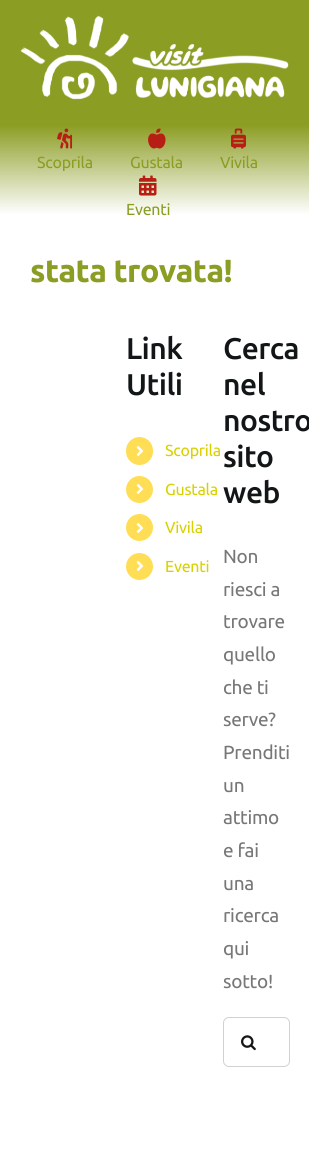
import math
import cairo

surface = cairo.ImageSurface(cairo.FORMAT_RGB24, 309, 1175)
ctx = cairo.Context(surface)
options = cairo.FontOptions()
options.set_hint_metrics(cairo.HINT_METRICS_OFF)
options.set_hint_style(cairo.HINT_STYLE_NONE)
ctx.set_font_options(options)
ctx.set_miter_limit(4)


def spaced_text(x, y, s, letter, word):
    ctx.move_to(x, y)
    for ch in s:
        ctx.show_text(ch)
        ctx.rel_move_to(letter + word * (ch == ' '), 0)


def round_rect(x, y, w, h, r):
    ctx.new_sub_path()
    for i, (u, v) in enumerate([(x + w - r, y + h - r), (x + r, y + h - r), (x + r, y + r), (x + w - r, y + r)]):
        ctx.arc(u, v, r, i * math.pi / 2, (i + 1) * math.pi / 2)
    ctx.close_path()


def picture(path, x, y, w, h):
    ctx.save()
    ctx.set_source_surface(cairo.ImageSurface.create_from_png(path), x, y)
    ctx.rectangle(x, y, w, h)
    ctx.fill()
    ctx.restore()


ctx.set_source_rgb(1, 1, 1)
ctx.paint()
gradient = cairo.LinearGradient(160, 0, 160, 244)
gradient.add_color_stop_rgba(0.51, 0.545, 0.616, 0.137, 1)
gradient.add_color_stop_rgba(0.88, 1, 1, 1, 1)
ctx.set_source(gradient)
ctx.rectangle(0, 0, 309, 214)
ctx.fill()
picture("img1.png", 20, 15, 269, 85)
picture("img2.png", 57, 128, 16, 21)
ctx.select_font_face("Ubuntu")
ctx.set_font_size(16)
ctx.set_source_rgb(0.545, 0.616, 0.137)
spaced_text(37, 168, "Scoprila", -0.25, 0)
picture("img3.png", 148, 128, 18, 21)
spaced_text(130, 168, "Gustala", -0.25, 0)
picture("img4.png", 231, 128, 15, 21)
spaced_text(220, 168, "Vivila", -0.25, 0)
picture("img5.png", 139, 175, 18, 21)
spaced_text(126, 215, "Eventi", -0.25, 0)
ctx.select_font_face("Ubuntu", cairo.FONT_SLANT_NORMAL, cairo.FONT_WEIGHT_BOLD)
ctx.set_font_size(32)
spaced_text(30, 282, "stata trovata!", -0.6, 0)
ctx.select_font_face("Ubuntu Medium")
ctx.set_font_size(30)
ctx.set_source_rgb(0.078, 0.086, 0.09)
spaced_text(126, 359, "Link", -0.5, 0)
spaced_text(126, 395, "Utili", -0.5, 0)
ctx.set_source_rgb(1, 0.867, 0.333)
round_rect(126, 437, 27, 28, 13.5)
ctx.fill()
picture("img6.png", 136, 446, 8, 10)
ctx.select_font_face("Ubuntu")
ctx.set_font_size(16)
ctx.set_source_rgb(0.847, 0.82, 0)
spaced_text(165, 456, "Scoprila", -0.25, 0)
ctx.set_source_rgb(1, 0.867, 0.333)
ctx.new_path()
ctx.arc(139.5, 489.5, 13.5, 0, 2 * math.pi)
ctx.fill()
picture("img6.png", 136, 484, 8, 10)
ctx.set_source_rgb(0.847, 0.82, 0)
spaced_text(165, 495, "Gustala", -0.25, 0)
ctx.set_source_rgb(1, 0.867, 0.333)
ctx.new_path()
ctx.arc(139.5, 527.5, 13.5, 0, 2 * math.pi)
ctx.fill()
picture("img6.png", 136, 523, 8, 10)
ctx.set_source_rgb(0.847, 0.82, 0)
spaced_text(165, 533, "Vivila", -0.25, 0)
ctx.set_source_rgb(1, 0.867, 0.333)
ctx.new_path()
ctx.arc(139.5, 566.5, 13.5, 0, 2 * math.pi)
ctx.fill()
picture("img6.png", 136, 561, 8, 10)
ctx.set_source_rgb(0.847, 0.82, 0)
spaced_text(165, 572, "Eventi", -0.25, 0)
ctx.select_font_face("Ubuntu Medium")
ctx.set_font_size(30)
ctx.set_source_rgb(0.078, 0.086, 0.09)
spaced_text(223, 359, "Cerca", -0.5, 0)
spaced_text(223, 395, "nel", -0.5, 0)
spaced_text(223, 431, "nostro", -0.5, 0)
spaced_text(223, 467, "sito", -0.5, 0)
spaced_text(223, 503, "web", -0.5, 0)
ctx.select_font_face("Ubuntu")
ctx.set_font_size(19)
ctx.set_source_rgb(0.467, 0.467, 0.467)
spaced_text(223, 563, "Non", -0.25, 0)
spaced_text(223, 596, "riesci a", -0.25, 0)
spaced_text(223, 628, "trovare", -0.25, 0)
spaced_text(223, 661, "quello", -0.25, 0)
spaced_text(223, 694, "che ti", -0.25, 0)
spaced_text(223, 726, "serve?", -0.25, 0)
spaced_text(223, 759, "Prenditi", -0.25, 0)
spaced_text(223, 792, "un", -0.25, 0)
spaced_text(223, 824, "attimo", -0.25, 0)
spaced_text(223, 857, "e fai", -0.25, 0)
spaced_text(223, 890, "una", -0.25, 0)
spaced_text(223, 922, "ricerca", -0.25, 0)
spaced_text(223, 955, "qui", -0.25, 0)
spaced_text(223, 988, "sotto!", -0.25, 0)
round_rect(223.5, 1017.5, 66, 49, 5.5)
ctx.set_source_rgb(0.82, 0.82, 0.82)
ctx.set_line_width(1)
ctx.stroke()
picture("img7.png", 241, 1035, 15, 16)
surface.write_to_png("page.png")
